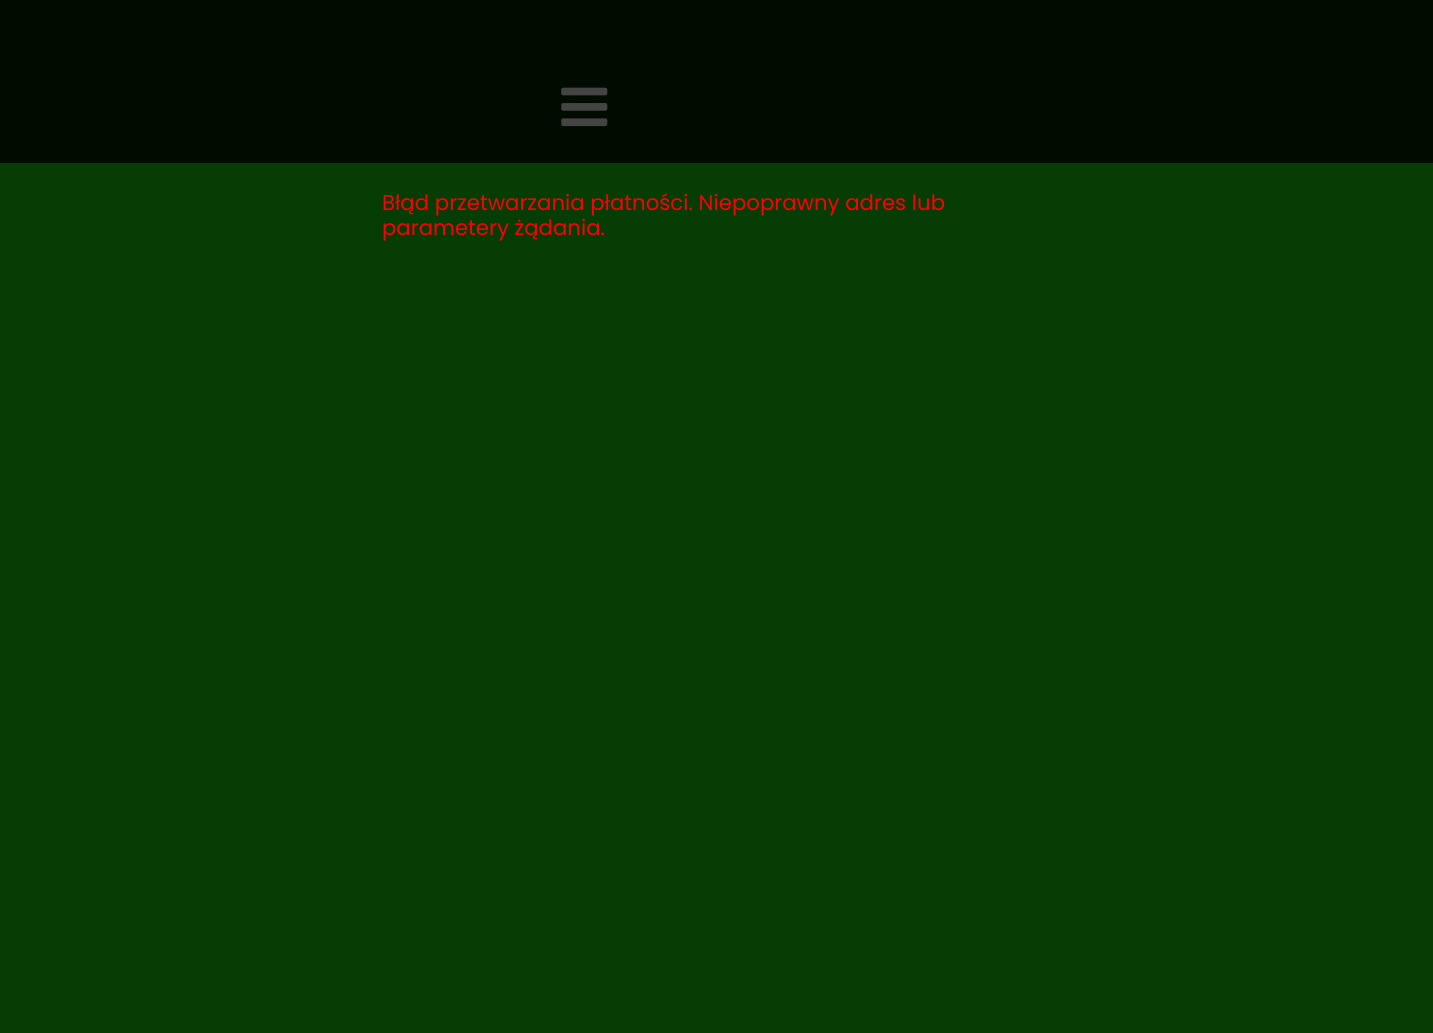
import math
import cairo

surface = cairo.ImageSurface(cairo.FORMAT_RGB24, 1433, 1033)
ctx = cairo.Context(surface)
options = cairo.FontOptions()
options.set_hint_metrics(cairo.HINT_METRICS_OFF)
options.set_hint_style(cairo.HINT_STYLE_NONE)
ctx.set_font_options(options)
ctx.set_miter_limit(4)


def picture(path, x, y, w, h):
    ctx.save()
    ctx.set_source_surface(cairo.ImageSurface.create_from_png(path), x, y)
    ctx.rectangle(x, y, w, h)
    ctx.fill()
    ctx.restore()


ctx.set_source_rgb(0.02, 0.239, 0.02)
ctx.paint()
ctx.set_source_rgb(0.004, 0.047, 0.004)
ctx.rectangle(0, 0, 1433, 163)
ctx.fill()
picture("img1.png", 561, 87, 47, 40)
ctx.select_font_face("Poppins")
ctx.set_font_size(21.25)
ctx.set_source_rgb(1, 0, 0)
ctx.move_to(382, 210)
ctx.show_text("Błąd przetwarzania płatności. Niepoprawny adres lub")
ctx.move_to(382, 235)
ctx.show_text("parametery żądania.")
surface.write_to_png("page.png")
